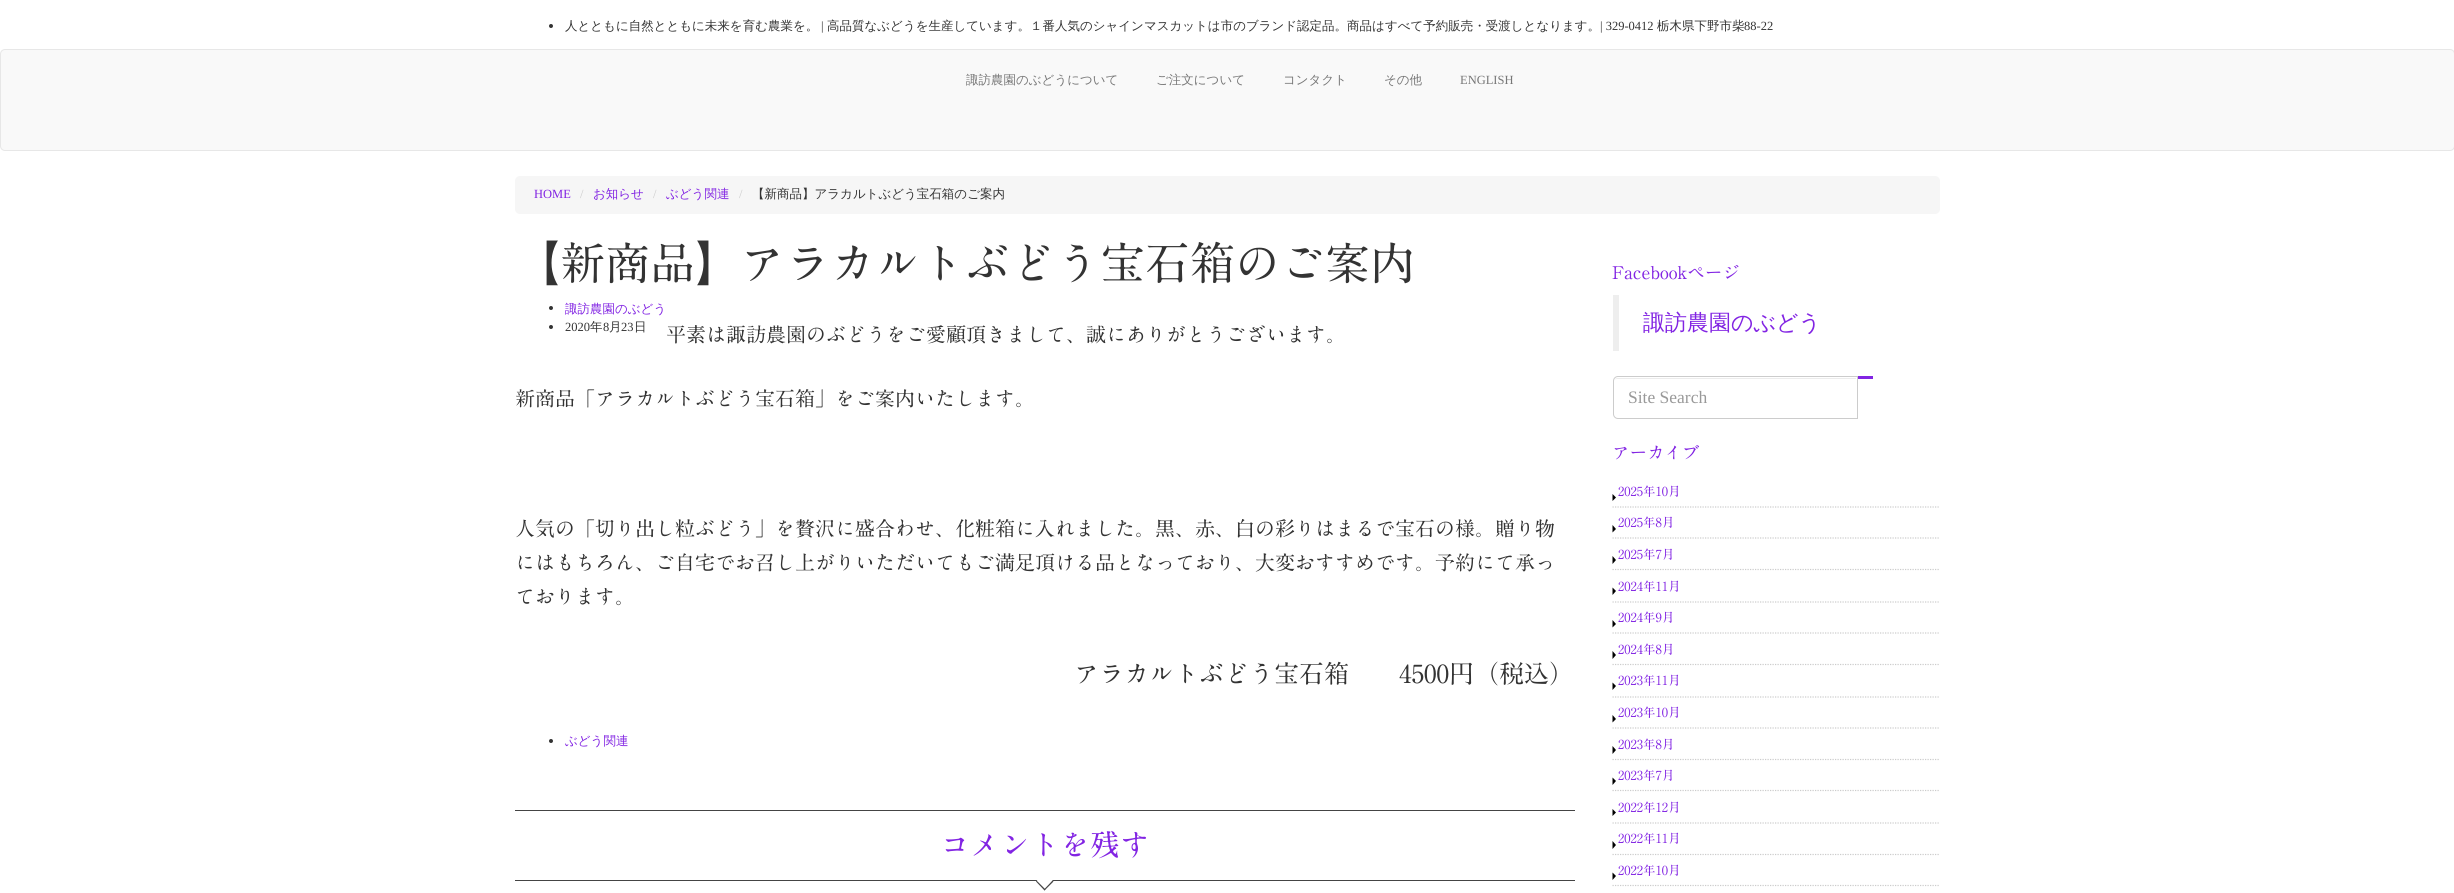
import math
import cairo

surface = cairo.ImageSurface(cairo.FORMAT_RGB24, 2454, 893)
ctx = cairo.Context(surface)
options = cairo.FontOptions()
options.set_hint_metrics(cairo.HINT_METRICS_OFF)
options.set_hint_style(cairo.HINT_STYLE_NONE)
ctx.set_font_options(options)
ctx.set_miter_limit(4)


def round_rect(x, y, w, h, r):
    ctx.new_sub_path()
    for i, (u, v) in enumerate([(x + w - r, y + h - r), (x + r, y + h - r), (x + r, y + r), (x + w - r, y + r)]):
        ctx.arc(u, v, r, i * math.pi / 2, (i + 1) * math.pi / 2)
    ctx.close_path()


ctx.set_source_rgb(1, 1, 1)
ctx.paint()
ctx.set_source_rgb(0.2, 0.2, 0.2)
ctx.arc(551, 26, 2, 0, 2 * math.pi)
ctx.fill()
ctx.select_font_face("WenQuanYi Zen Hei Medium")
ctx.set_font_size(12.5)
ctx.move_to(565, 30)
ctx.show_text("人とともに自然とともに未来を育む農業を。")
ctx.select_font_face("Liberation Serif")
ctx.move_to(821, 30)
ctx.show_text("|")
ctx.select_font_face("WenQuanYi Zen Hei Medium")
ctx.move_to(827, 30)
ctx.show_text("高品質なぶどうを生産しています。１番人気のシャインマスカットは市のブランド認定品。商品はすべて予約販売・受渡しとなります。")
ctx.select_font_face("Liberation Serif")
ctx.move_to(1600, 30)
ctx.show_text("| 329-0412")
ctx.select_font_face("WenQuanYi Zen Hei Medium")
ctx.move_to(1657, 30)
ctx.show_text("栃木県下野市柴")
ctx.select_font_face("Liberation Serif")
ctx.move_to(1744, 30)
ctx.show_text("88-22")
ctx.set_source_rgb(0.973, 0.973, 0.973)
round_rect(0.5, 49.5, 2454, 101, 4.5)
ctx.fill_preserve()
ctx.set_source_rgb(0.906, 0.906, 0.906)
ctx.set_line_width(1)
ctx.stroke()
ctx.select_font_face("WenQuanYi Zen Hei Medium")
ctx.set_source_rgb(0.467, 0.467, 0.467)
ctx.move_to(966, 84)
ctx.show_text("諏訪農園のぶどうについて")
ctx.move_to(1156, 84)
ctx.show_text("ご注文について")
ctx.move_to(1283, 84)
ctx.show_text("コンタクト")
ctx.move_to(1384, 84)
ctx.show_text("その他")
ctx.select_font_face("Liberation Serif")
ctx.move_to(1460, 84)
ctx.show_text("ENGLISH")
ctx.set_source_rgb(0.961, 0.961, 0.961)
round_rect(515, 176, 1425, 38, 5)
ctx.fill()
ctx.set_source_rgb(0.51, 0.141, 0.89)
ctx.move_to(534, 198)
ctx.show_text("HOME")
ctx.set_source_rgb(0.8, 0.8, 0.8)
ctx.move_to(580, 198)
ctx.show_text("/")
ctx.select_font_face("WenQuanYi Zen Hei Medium")
ctx.set_source_rgb(0.51, 0.141, 0.89)
ctx.move_to(593, 198)
ctx.show_text("お知らせ")
ctx.select_font_face("Liberation Serif")
ctx.set_source_rgb(0.8, 0.8, 0.8)
ctx.move_to(653, 198)
ctx.show_text("/")
ctx.select_font_face("WenQuanYi Zen Hei Medium")
ctx.set_source_rgb(0.51, 0.141, 0.89)
ctx.move_to(666, 198)
ctx.show_text("ぶどう関連")
ctx.select_font_face("Liberation Serif")
ctx.set_source_rgb(0.8, 0.8, 0.8)
ctx.move_to(739, 198)
ctx.show_text("/")
ctx.select_font_face("WenQuanYi Zen Hei Medium")
ctx.set_source_rgb(0.2, 0.2, 0.2)
ctx.move_to(752, 198)
ctx.show_text("【新商品】アラカルトぶどう宝石箱のご案内")
ctx.select_font_face("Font")
ctx.set_font_size(45)
ctx.move_to(515, 280)
ctx.show_text("【新商品】アラカルトぶどう宝石箱のご案内")
ctx.new_path()
ctx.arc(551, 308, 2, 0, 2 * math.pi)
ctx.fill()
ctx.select_font_face("WenQuanYi Zen Hei Medium")
ctx.set_font_size(12.5)
ctx.set_source_rgb(0.51, 0.141, 0.89)
ctx.move_to(565, 313)
ctx.show_text("諏訪農園のぶどう")
ctx.set_source_rgb(0.2, 0.2, 0.2)
ctx.new_path()
ctx.arc(551, 327, 2, 0, 2 * math.pi)
ctx.fill()
ctx.select_font_face("Liberation Serif")
ctx.move_to(565, 331)
ctx.show_text("2020")
ctx.select_font_face("WenQuanYi Zen Hei Medium")
ctx.move_to(590, 331)
ctx.show_text("年")
ctx.select_font_face("Liberation Serif")
ctx.move_to(603, 331)
ctx.show_text("8")
ctx.select_font_face("WenQuanYi Zen Hei Medium")
ctx.move_to(609, 331)
ctx.show_text("月")
ctx.select_font_face("Liberation Serif")
ctx.move_to(621, 331)
ctx.show_text("23")
ctx.select_font_face("WenQuanYi Zen Hei Medium")
ctx.move_to(634, 331)
ctx.show_text("日")
ctx.select_font_face("Font")
ctx.set_font_size(20)
ctx.move_to(666, 342)
ctx.show_text("平素は諏訪農園のぶどうをご愛顧頂きまして、誠にありがとうございます。")
ctx.move_to(515, 406)
ctx.show_text("新商品「アラカルトぶどう宝石箱」をご案内いたします。")
ctx.move_to(515, 536)
ctx.show_text("人気の「切り出し粒ぶどう」を贅沢に盛合わせ、化粧箱に入れました。黒、赤、白の彩りはまるで宝石の様。贈り物")
ctx.move_to(515, 570)
ctx.show_text("にはもちろん、ご自宅でお召し上がりいただいてもご満足頂ける品となっており、大変おすすめです。予約にて承っ")
ctx.move_to(515, 604)
ctx.show_text("ております。")
ctx.set_font_size(25)
ctx.move_to(1074, 683)
ctx.show_text("アラカルトぶどう宝石箱　　4500円（税込）")
ctx.new_path()
ctx.arc(551, 741, 2, 0, 2 * math.pi)
ctx.fill()
ctx.select_font_face("WenQuanYi Zen Hei Medium")
ctx.set_font_size(12.5)
ctx.set_source_rgb(0.51, 0.141, 0.89)
ctx.move_to(565, 745)
ctx.show_text("ぶどう関連")
ctx.set_source_rgb(0.267, 0.267, 0.267)
ctx.rectangle(515, 810, 1060, 1)
ctx.fill()
ctx.rectangle(515, 880, 1060, 1)
ctx.fill()
ctx.select_font_face("Font")
ctx.set_font_size(30)
ctx.set_source_rgb(0.51, 0.141, 0.89)
ctx.move_to(940, 856)
ctx.show_text("コメントを残す")
ctx.set_source_rgb(1, 1, 1)
ctx.new_path()
ctx.move_to(1036, 881.5)
ctx.line_to(1044.5, 872.5)
ctx.line_to(1053.5, 881.5)
ctx.line_to(1044.5, 890.5)
ctx.close_path()
ctx.fill()
ctx.set_source_rgb(0.267, 0.267, 0.267)
ctx.new_path()
ctx.move_to(1044, 889.5)
ctx.line_to(1052.5, 880.5)
ctx.line_to(1053.5, 881.5)
ctx.line_to(1044.5, 890.5)
ctx.close_path()
ctx.fill()
ctx.new_path()
ctx.move_to(1036, 881.5)
ctx.line_to(1036.5, 880.5)
ctx.line_to(1045.5, 889.5)
ctx.line_to(1044.5, 890.5)
ctx.close_path()
ctx.fill()
ctx.set_font_size(17.5)
ctx.set_source_rgb(0.51, 0.141, 0.89)
ctx.move_to(1612, 279)
ctx.show_text("Facebookページ")
ctx.set_source_rgb(0.933, 0.933, 0.933)
ctx.rectangle(1613, 295, 6, 56)
ctx.fill()
ctx.select_font_face("WenQuanYi Zen Hei Medium")
ctx.set_font_size(22)
ctx.set_source_rgb(0.51, 0.141, 0.89)
ctx.move_to(1643, 330)
ctx.show_text("諏訪農園のぶどう")
ctx.rectangle(1858, 376, 15, 3)
ctx.fill()
ctx.set_source_rgb(0.925, 0.925, 0.925)
ctx.new_path()
ctx.move_to(1618, 379)
ctx.line_to(1856, 379)
ctx.line_to(1856, 378)
ctx.line_to(1618, 378)
ctx.curve_to(1616, 378, 1615, 379, 1614, 380)
ctx.curve_to(1615, 379, 1616, 379, 1618, 379)
ctx.close_path()
ctx.fill()
ctx.new_path()
ctx.move_to(1618, 376.5)
ctx.line_to(1857.5, 376.5)
ctx.line_to(1857.5, 418.5)
ctx.line_to(1618, 418.5)
ctx.curve_to(1615.5, 418.5, 1613.5, 416.5, 1613.5, 414)
ctx.line_to(1613.5, 381)
ctx.curve_to(1613.5, 378.5, 1615.5, 376.5, 1618, 376.5)
ctx.close_path()
ctx.set_source_rgb(0.8, 0.8, 0.8)
ctx.stroke()
ctx.select_font_face("Liberation Serif")
ctx.set_font_size(17.5)
ctx.set_source_rgb(0.6, 0.6, 0.6)
ctx.move_to(1628, 403)
ctx.show_text("Site Search")
ctx.select_font_face("Font")
ctx.set_source_rgb(0.51, 0.141, 0.89)
ctx.move_to(1612, 459)
ctx.show_text("アーカイブ")
ctx.new_path()
ctx.move_to(1612.5, 507)
ctx.line_to(1940, 507)
ctx.set_source_rgb(0.8, 0.8, 0.8)
ctx.set_line_width(1.2)
ctx.set_dash([1.25, 1.25])
ctx.stroke()
ctx.set_source_rgb(0, 0, 0)
ctx.new_path()
ctx.move_to(1612.5, 501)
ctx.line_to(1612.5, 494)
ctx.line_to(1616, 497.5)
ctx.close_path()
ctx.fill()
ctx.set_font_size(12.5)
ctx.set_source_rgb(0.51, 0.141, 0.89)
ctx.move_to(1618, 496)
ctx.show_text("2025年10月")
ctx.new_path()
ctx.move_to(1612.5, 538)
ctx.line_to(1940, 538)
ctx.set_source_rgb(0.8, 0.8, 0.8)
ctx.stroke()
ctx.set_source_rgb(0.51, 0.141, 0.89)
ctx.move_to(1618, 527)
ctx.show_text("2025年8月")
ctx.set_source_rgb(0, 0, 0)
ctx.new_path()
ctx.move_to(1612.5, 532.5)
ctx.line_to(1612.5, 525)
ctx.line_to(1616, 529)
ctx.close_path()
ctx.fill()
ctx.new_path()
ctx.move_to(1612.5, 569.5)
ctx.line_to(1940, 569.5)
ctx.set_source_rgb(0.8, 0.8, 0.8)
ctx.stroke()
ctx.set_source_rgb(0, 0, 0)
ctx.new_path()
ctx.move_to(1612.5, 564)
ctx.line_to(1612.5, 556)
ctx.line_to(1616, 560)
ctx.close_path()
ctx.fill()
ctx.set_source_rgb(0.51, 0.141, 0.89)
ctx.move_to(1618, 559)
ctx.show_text("2025年7月")
ctx.new_path()
ctx.move_to(1612.5, 602)
ctx.line_to(1940, 602)
ctx.set_source_rgb(0.8, 0.8, 0.8)
ctx.stroke()
ctx.set_source_rgb(0, 0, 0)
ctx.new_path()
ctx.move_to(1612.5, 595)
ctx.line_to(1612.5, 587.5)
ctx.line_to(1616, 591)
ctx.close_path()
ctx.fill()
ctx.set_source_rgb(0.51, 0.141, 0.89)
ctx.move_to(1618, 591)
ctx.show_text("2024年11月")
ctx.new_path()
ctx.move_to(1612.5, 633)
ctx.line_to(1940, 633)
ctx.set_source_rgb(0.8, 0.8, 0.8)
ctx.stroke()
ctx.set_source_rgb(0.51, 0.141, 0.89)
ctx.move_to(1618, 622)
ctx.show_text("2024年9月")
ctx.set_source_rgb(0, 0, 0)
ctx.new_path()
ctx.move_to(1612.5, 627.5)
ctx.line_to(1612.5, 620)
ctx.line_to(1616, 624)
ctx.close_path()
ctx.fill()
ctx.new_path()
ctx.move_to(1612.5, 664.5)
ctx.line_to(1940, 664.5)
ctx.set_source_rgb(0.8, 0.8, 0.8)
ctx.stroke()
ctx.set_source_rgb(0, 0, 0)
ctx.new_path()
ctx.move_to(1612.5, 659)
ctx.line_to(1612.5, 651)
ctx.line_to(1616, 655)
ctx.close_path()
ctx.fill()
ctx.set_source_rgb(0.51, 0.141, 0.89)
ctx.move_to(1618, 654)
ctx.show_text("2024年8月")
ctx.new_path()
ctx.move_to(1612.5, 697)
ctx.line_to(1940, 697)
ctx.set_source_rgb(0.8, 0.8, 0.8)
ctx.stroke()
ctx.set_source_rgb(0, 0, 0)
ctx.new_path()
ctx.move_to(1612.5, 690)
ctx.line_to(1612.5, 682.5)
ctx.line_to(1616, 686)
ctx.close_path()
ctx.fill()
ctx.set_source_rgb(0.51, 0.141, 0.89)
ctx.move_to(1618, 685)
ctx.show_text("2023年11月")
ctx.new_path()
ctx.move_to(1612.5, 728)
ctx.line_to(1940, 728)
ctx.set_source_rgb(0.8, 0.8, 0.8)
ctx.stroke()
ctx.set_source_rgb(0.51, 0.141, 0.89)
ctx.move_to(1618, 717)
ctx.show_text("2023年10月")
ctx.set_source_rgb(0, 0, 0)
ctx.new_path()
ctx.move_to(1612.5, 722.5)
ctx.line_to(1612.5, 715)
ctx.line_to(1616, 719)
ctx.close_path()
ctx.fill()
ctx.new_path()
ctx.move_to(1612.5, 759.5)
ctx.line_to(1940, 759.5)
ctx.set_source_rgb(0.8, 0.8, 0.8)
ctx.stroke()
ctx.set_source_rgb(0, 0, 0)
ctx.new_path()
ctx.move_to(1612.5, 754)
ctx.line_to(1612.5, 746)
ctx.line_to(1616, 750)
ctx.close_path()
ctx.fill()
ctx.set_source_rgb(0.51, 0.141, 0.89)
ctx.move_to(1618, 749)
ctx.show_text("2023年8月")
ctx.new_path()
ctx.move_to(1612.5, 790.5)
ctx.line_to(1940, 790.5)
ctx.set_source_rgb(0.8, 0.8, 0.8)
ctx.stroke()
ctx.set_source_rgb(0, 0, 0)
ctx.new_path()
ctx.move_to(1612.5, 785)
ctx.line_to(1612.5, 777.5)
ctx.line_to(1616, 781)
ctx.close_path()
ctx.fill()
ctx.set_source_rgb(0.51, 0.141, 0.89)
ctx.move_to(1618, 780)
ctx.show_text("2023年7月")
ctx.new_path()
ctx.move_to(1612.5, 823)
ctx.line_to(1940, 823)
ctx.set_source_rgb(0.8, 0.8, 0.8)
ctx.stroke()
ctx.set_source_rgb(0, 0, 0)
ctx.new_path()
ctx.move_to(1612.5, 816)
ctx.line_to(1612.5, 809)
ctx.line_to(1616, 812.5)
ctx.close_path()
ctx.fill()
ctx.set_source_rgb(0.51, 0.141, 0.89)
ctx.move_to(1618, 812)
ctx.show_text("2022年12月")
ctx.new_path()
ctx.move_to(1612.5, 854.5)
ctx.line_to(1940, 854.5)
ctx.set_source_rgb(0.8, 0.8, 0.8)
ctx.stroke()
ctx.set_source_rgb(0.51, 0.141, 0.89)
ctx.move_to(1618, 843)
ctx.show_text("2022年11月")
ctx.set_source_rgb(0, 0, 0)
ctx.new_path()
ctx.move_to(1612.5, 849)
ctx.line_to(1612.5, 841)
ctx.line_to(1616, 845)
ctx.close_path()
ctx.fill()
ctx.new_path()
ctx.move_to(1612.5, 885.5)
ctx.line_to(1940, 885.5)
ctx.set_source_rgb(0.8, 0.8, 0.8)
ctx.stroke()
ctx.set_source_rgb(0, 0, 0)
ctx.new_path()
ctx.move_to(1612.5, 880)
ctx.line_to(1612.5, 872.5)
ctx.line_to(1616, 876)
ctx.close_path()
ctx.fill()
ctx.set_source_rgb(0.51, 0.141, 0.89)
ctx.move_to(1618, 875)
ctx.show_text("2022年10月")
surface.write_to_png("page.png")
